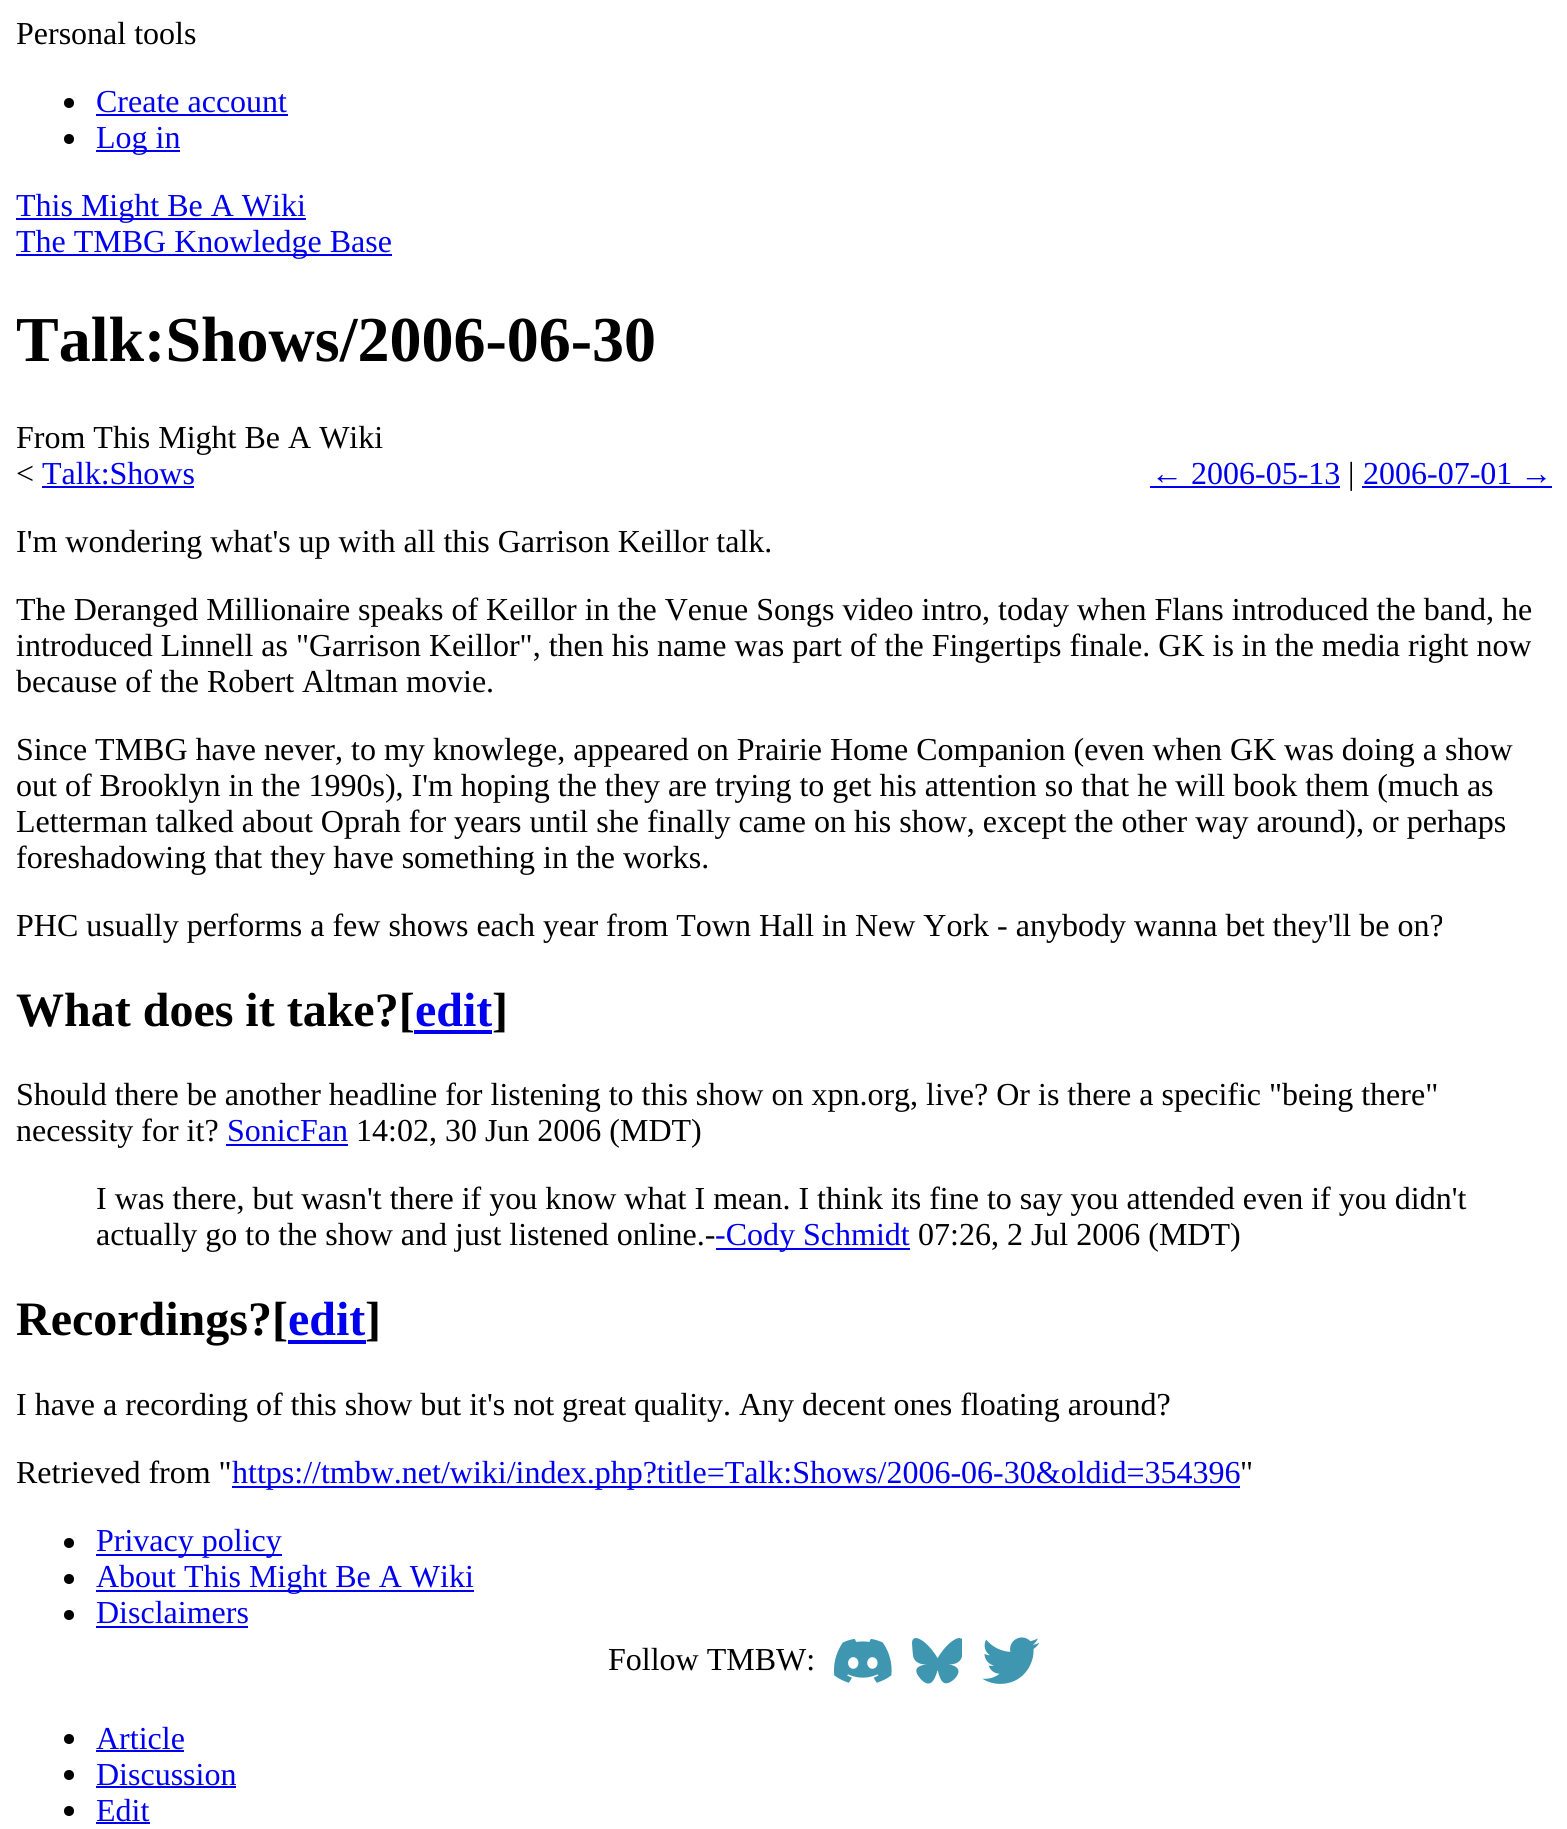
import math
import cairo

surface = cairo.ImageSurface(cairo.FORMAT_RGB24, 1567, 1829)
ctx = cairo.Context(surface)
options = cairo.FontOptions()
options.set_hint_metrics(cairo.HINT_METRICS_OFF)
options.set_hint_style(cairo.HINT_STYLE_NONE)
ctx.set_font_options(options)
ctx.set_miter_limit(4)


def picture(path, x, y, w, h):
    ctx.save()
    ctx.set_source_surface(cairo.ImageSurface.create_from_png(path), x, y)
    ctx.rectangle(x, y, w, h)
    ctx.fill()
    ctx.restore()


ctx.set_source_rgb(1, 1, 1)
ctx.paint()
ctx.select_font_face("Liberation Serif")
ctx.set_font_size(32)
ctx.set_source_rgb(0, 0, 0)
ctx.move_to(16, 44)
ctx.show_text("Personal tools")
ctx.new_path()
ctx.arc(69, 103, 5, 0, 2 * math.pi)
ctx.fill()
ctx.set_source_rgb(0, 0, 0.933)
ctx.move_to(96, 112)
ctx.show_text("Create account")
ctx.rectangle(96, 114, 192, 2)
ctx.fill()
ctx.set_source_rgb(0, 0, 0)
ctx.arc(69, 139, 5, 0, 2 * math.pi)
ctx.fill()
ctx.set_source_rgb(0, 0, 0.933)
ctx.rectangle(96, 150, 84, 2)
ctx.fill()
ctx.move_to(96, 148)
ctx.show_text("Log in")
ctx.rectangle(16, 218, 290, 2)
ctx.fill()
ctx.move_to(16, 216)
ctx.show_text("This Might Be A Wiki")
ctx.rectangle(16, 254, 376, 2)
ctx.fill()
ctx.move_to(16, 252)
ctx.show_text("The TMBG Knowledge Base")
ctx.select_font_face("Liberation Serif", cairo.FONT_SLANT_NORMAL, cairo.FONT_WEIGHT_BOLD)
ctx.set_font_size(64)
ctx.set_source_rgb(0, 0, 0)
ctx.move_to(16, 361)
ctx.show_text("Talk:Shows/2006-06-30")
ctx.select_font_face("Liberation Serif")
ctx.set_font_size(32)
ctx.move_to(16, 448)
ctx.show_text("From This Might Be A Wiki")
ctx.move_to(16, 484)
ctx.show_text("<")
ctx.set_source_rgb(0, 0, 0.933)
ctx.move_to(42, 484)
ctx.show_text("Talk:Shows")
ctx.rectangle(42, 486, 152, 2)
ctx.fill()
ctx.move_to(1151, 484)
ctx.show_text("← 2006-05-13")
ctx.rectangle(1150, 486, 190, 2)
ctx.fill()
ctx.set_source_rgb(0, 0, 0)
ctx.move_to(1348, 484)
ctx.show_text("|")
ctx.set_source_rgb(0, 0, 0.933)
ctx.move_to(1363, 484)
ctx.show_text("2006-07-01 →")
ctx.rectangle(1362, 486, 190, 2)
ctx.fill()
ctx.set_source_rgb(0, 0, 0)
ctx.move_to(16, 552)
ctx.show_text("I'm wondering what's up with all this Garrison Keillor talk.")
ctx.move_to(16, 620)
ctx.show_text("The Deranged Millionaire speaks of Keillor in the Venue Songs video intro, today when Flans introduced the band, he")
ctx.move_to(16, 656)
ctx.show_text("introduced Linnell as \"Garrison Keillor\", then his name was part of the Fingertips finale. GK is in the media right now")
ctx.move_to(16, 692)
ctx.show_text("because of the Robert Altman movie.")
ctx.move_to(16, 760)
ctx.show_text("Since TMBG have never, to my knowlege, appeared on Prairie Home Companion (even when GK was doing a show")
ctx.move_to(16, 796)
ctx.show_text("out of Brooklyn in the 1990s), I'm hoping the they are trying to get his attention so that he will book them (much as")
ctx.move_to(16, 832)
ctx.show_text("Letterman talked about Oprah for years until she finally came on his show, except the other way around), or perhaps")
ctx.move_to(16, 868)
ctx.show_text("foreshadowing that they have something in the works.")
ctx.move_to(16, 936)
ctx.show_text("PHC usually performs a few shows each year from Town Hall in New York - anybody wanna bet they'll be on?")
ctx.select_font_face("Liberation Serif", cairo.FONT_SLANT_NORMAL, cairo.FONT_WEIGHT_BOLD)
ctx.set_font_size(48)
ctx.move_to(16, 1026)
ctx.show_text("What does it take?[")
ctx.set_source_rgb(0, 0, 0.933)
ctx.move_to(415, 1026)
ctx.show_text("edit")
ctx.set_source_rgb(0, 0, 0)
ctx.move_to(492, 1026)
ctx.show_text("]")
ctx.set_source_rgb(0, 0, 0.933)
ctx.rectangle(414, 1030, 78, 4)
ctx.fill()
ctx.select_font_face("Liberation Serif")
ctx.set_font_size(32)
ctx.set_source_rgb(0, 0, 0)
ctx.move_to(16, 1105)
ctx.show_text("Should there be another headline for listening to this show on xpn.org, live? Or is there a specific \"being there\"")
ctx.move_to(16, 1141)
ctx.show_text("necessity for it?")
ctx.set_source_rgb(0, 0, 0.933)
ctx.move_to(227, 1141)
ctx.show_text("SonicFan")
ctx.rectangle(226, 1144, 122, 2)
ctx.fill()
ctx.set_source_rgb(0, 0, 0)
ctx.move_to(356, 1141)
ctx.show_text("14:02, 30 Jun 2006 (MDT)")
ctx.move_to(96, 1209)
ctx.show_text("I was there, but wasn't there if you know what I mean. I think its fine to say you attended even if you didn't")
ctx.move_to(96, 1245)
ctx.show_text("actually go to the show and just listened online.-")
ctx.set_source_rgb(0, 0, 0.933)
ctx.rectangle(716, 1248, 194, 2)
ctx.fill()
ctx.move_to(715, 1245)
ctx.show_text("-Cody Schmidt")
ctx.set_source_rgb(0, 0, 0)
ctx.move_to(918, 1245)
ctx.show_text("07:26, 2 Jul 2006 (MDT)")
ctx.select_font_face("Liberation Serif", cairo.FONT_SLANT_NORMAL, cairo.FONT_WEIGHT_BOLD)
ctx.set_font_size(48)
ctx.move_to(16, 1335)
ctx.show_text("Recordings?[")
ctx.set_source_rgb(0, 0, 0.933)
ctx.move_to(288, 1335)
ctx.show_text("edit")
ctx.set_source_rgb(0, 0, 0)
ctx.move_to(365, 1335)
ctx.show_text("]")
ctx.set_source_rgb(0, 0, 0.933)
ctx.rectangle(288, 1340, 78, 4)
ctx.fill()
ctx.select_font_face("Liberation Serif")
ctx.set_font_size(32)
ctx.set_source_rgb(0, 0, 0)
ctx.move_to(16, 1415)
ctx.show_text("I have a recording of this show but it's not great quality. Any decent ones floating around?")
ctx.move_to(16, 1483)
ctx.show_text("Retrieved from \"")
ctx.set_source_rgb(0, 0, 0.933)
ctx.rectangle(232, 1486, 1008, 2)
ctx.fill()
ctx.move_to(232, 1483)
ctx.show_text("https://tmbw.net/wiki/index.php?title=Talk:Shows/2006-06-30&oldid=354396")
ctx.set_source_rgb(0, 0, 0)
ctx.move_to(1240, 1483)
ctx.show_text("\"")
ctx.new_path()
ctx.arc(69, 1543, 5, 0, 2 * math.pi)
ctx.fill()
ctx.set_source_rgb(0, 0, 0.933)
ctx.rectangle(96, 1554, 186, 2)
ctx.fill()
ctx.move_to(96, 1551)
ctx.show_text("Privacy policy")
ctx.set_source_rgb(0, 0, 0)
ctx.new_path()
ctx.arc(69, 1579, 5, 0, 2 * math.pi)
ctx.fill()
ctx.set_source_rgb(0, 0, 0.933)
ctx.rectangle(96, 1590, 378, 2)
ctx.fill()
ctx.move_to(96, 1587)
ctx.show_text("About This Might Be A Wiki")
ctx.set_source_rgb(0, 0, 0)
ctx.new_path()
ctx.arc(69, 1615, 5, 0, 2 * math.pi)
ctx.fill()
ctx.set_source_rgb(0, 0, 0.933)
ctx.move_to(96, 1623)
ctx.show_text("Disclaimers")
ctx.rectangle(96, 1626, 152, 2)
ctx.fill()
ctx.set_source_rgb(0, 0, 0)
ctx.move_to(608, 1670)
ctx.show_text("Follow TMBW:")
picture("img1.png", 834, 1638, 58, 45)
picture("img2.png", 912, 1638, 50, 46)
picture("img3.png", 982, 1637, 58, 47)
ctx.arc(69, 1739, 5, 0, 2 * math.pi)
ctx.fill()
ctx.set_source_rgb(0, 0, 0.933)
ctx.move_to(96, 1749)
ctx.show_text("Article")
ctx.rectangle(96, 1750, 88, 2)
ctx.fill()
ctx.set_source_rgb(0, 0, 0)
ctx.arc(69, 1775, 5, 0, 2 * math.pi)
ctx.fill()
ctx.set_source_rgb(0, 0, 0.933)
ctx.move_to(96, 1785)
ctx.show_text("Discussion")
ctx.rectangle(96, 1786, 140, 2)
ctx.fill()
ctx.set_source_rgb(0, 0, 0)
ctx.arc(69, 1811, 5, 0, 2 * math.pi)
ctx.fill()
ctx.set_source_rgb(0, 0, 0.933)
ctx.move_to(96, 1821)
ctx.show_text("Edit")
ctx.rectangle(96, 1822, 54, 2)
ctx.fill()
surface.write_to_png("page.png")
